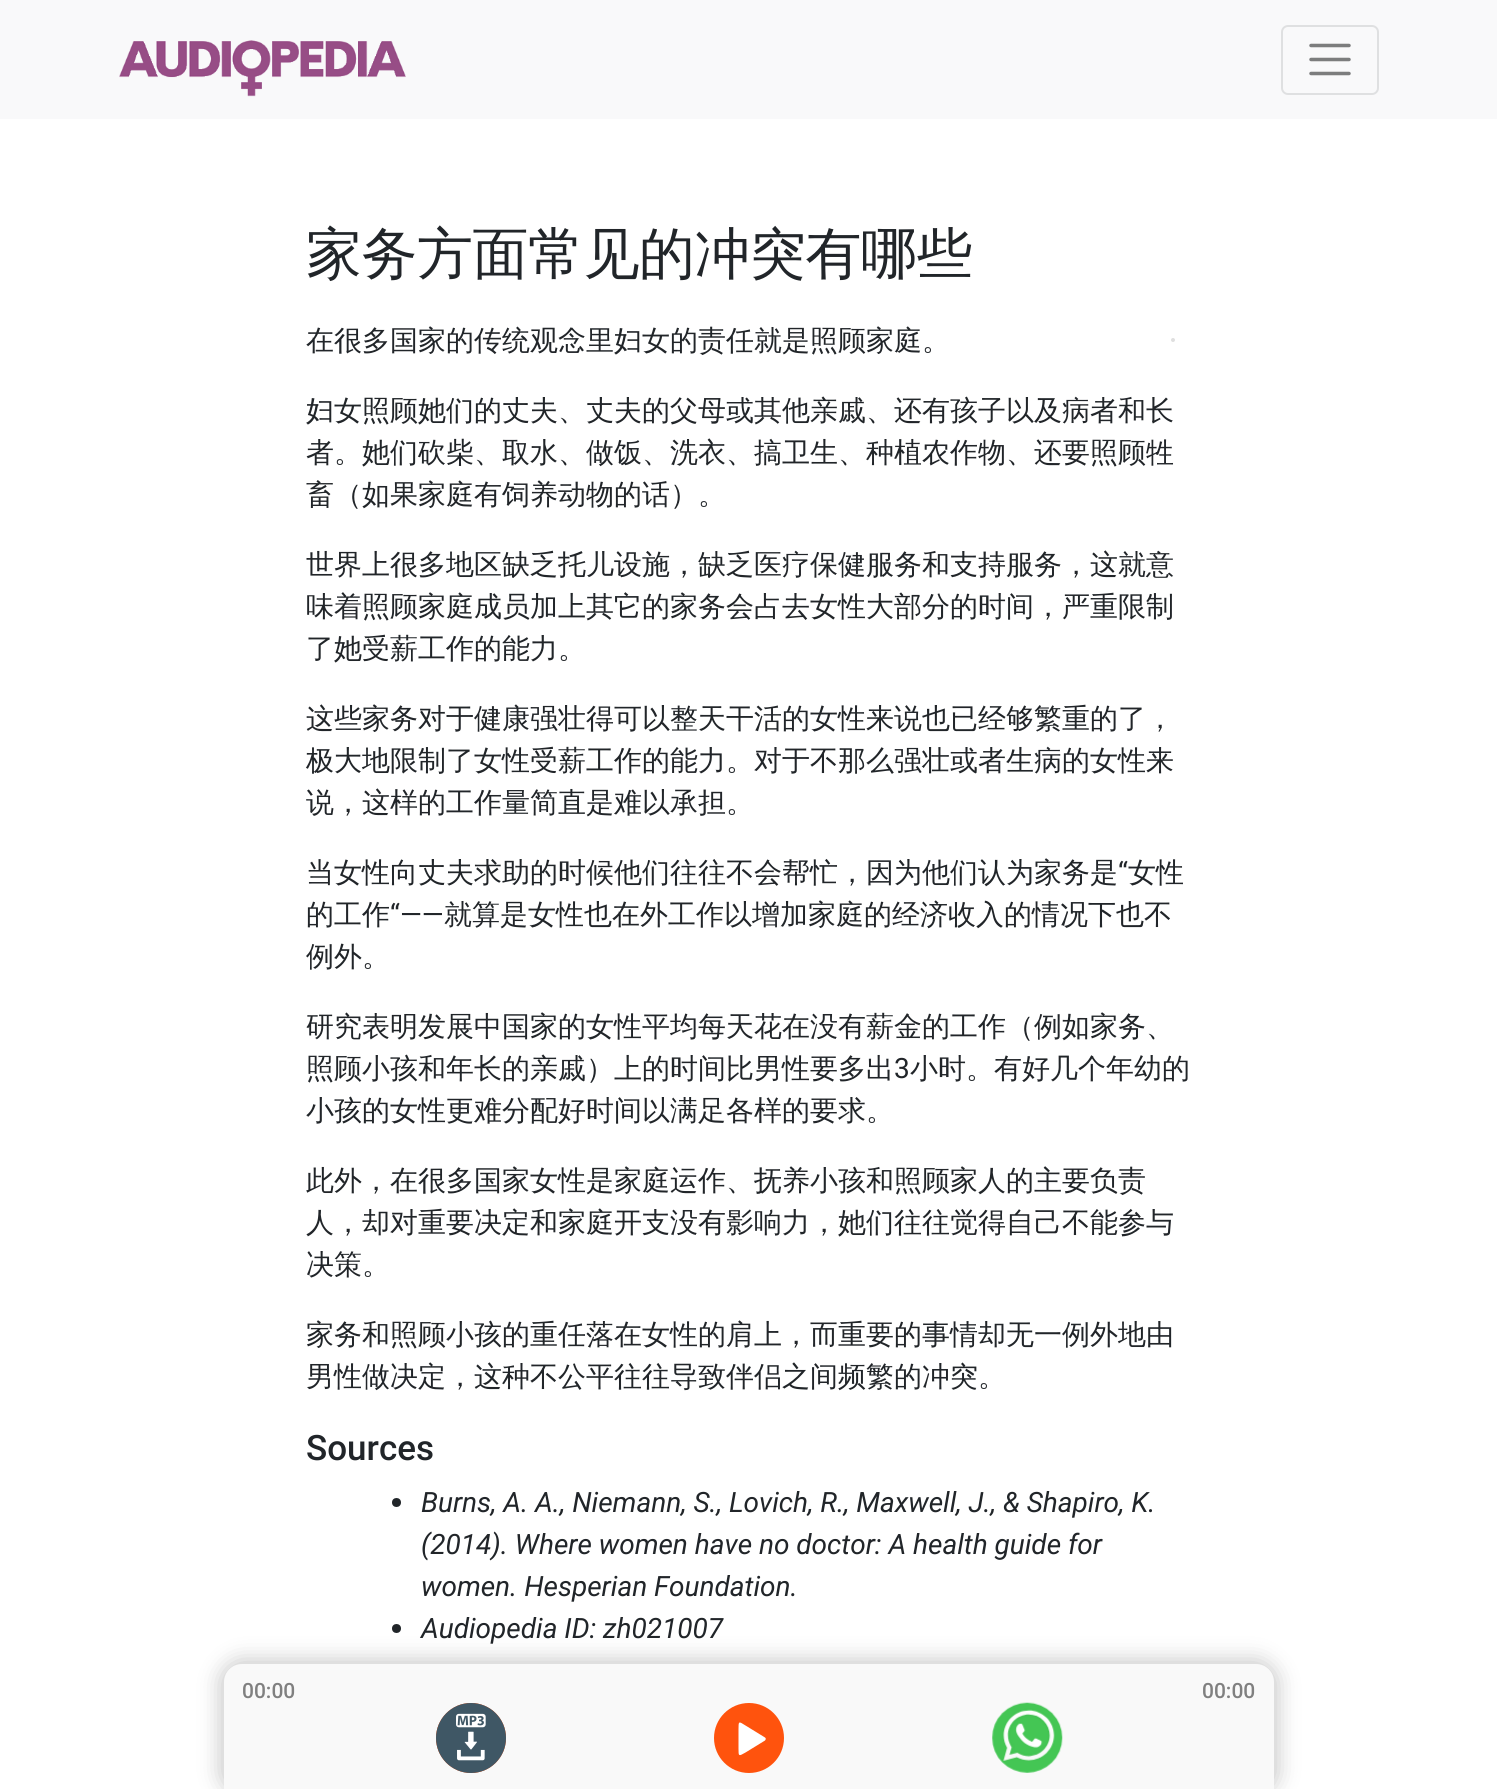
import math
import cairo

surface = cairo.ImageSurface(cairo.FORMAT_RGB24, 1497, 1789)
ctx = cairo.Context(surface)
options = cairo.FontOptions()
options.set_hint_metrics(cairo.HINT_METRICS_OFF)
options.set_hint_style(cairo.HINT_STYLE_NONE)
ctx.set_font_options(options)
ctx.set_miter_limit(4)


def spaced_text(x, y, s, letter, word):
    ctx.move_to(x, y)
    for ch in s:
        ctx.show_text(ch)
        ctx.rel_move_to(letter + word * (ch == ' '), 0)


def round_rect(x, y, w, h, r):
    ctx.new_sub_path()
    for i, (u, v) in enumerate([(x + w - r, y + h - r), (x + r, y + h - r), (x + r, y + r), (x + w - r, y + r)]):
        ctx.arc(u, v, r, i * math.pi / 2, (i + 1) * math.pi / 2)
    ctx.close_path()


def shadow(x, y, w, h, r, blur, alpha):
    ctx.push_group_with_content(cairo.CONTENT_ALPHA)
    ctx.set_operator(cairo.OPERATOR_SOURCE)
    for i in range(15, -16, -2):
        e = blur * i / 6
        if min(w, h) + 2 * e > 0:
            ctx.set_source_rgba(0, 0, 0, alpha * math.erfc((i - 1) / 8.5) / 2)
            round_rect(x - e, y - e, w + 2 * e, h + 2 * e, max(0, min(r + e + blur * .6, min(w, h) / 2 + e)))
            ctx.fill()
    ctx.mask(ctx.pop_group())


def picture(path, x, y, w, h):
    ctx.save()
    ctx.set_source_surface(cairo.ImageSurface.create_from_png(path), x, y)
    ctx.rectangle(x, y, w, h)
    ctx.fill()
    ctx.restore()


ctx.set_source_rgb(1, 1, 1)
ctx.paint()
ctx.set_source_rgb(0.973, 0.976, 0.98)
ctx.rectangle(0, 0, 1497, 119)
ctx.fill()
picture("img1.png", 119, 40, 287, 57)
round_rect(1282, 26, 96, 68, 6)
ctx.set_source_rgb(0.875, 0.878, 0.882)
ctx.stroke()
ctx.new_path()
ctx.move_to(1311, 45.5)
ctx.line_to(1349, 45.5)
ctx.move_to(1311, 59.5)
ctx.line_to(1349, 59.5)
ctx.move_to(1311, 73.5)
ctx.line_to(1349, 73.5)
ctx.set_source_rgb(0.486, 0.49, 0.49)
ctx.set_line_width(3.5)
ctx.set_line_cap(cairo.LINE_CAP_ROUND)
ctx.stroke()
ctx.select_font_face("WenQuanYi Zen Hei Medium")
ctx.set_font_size(56)
ctx.set_source_rgb(0.129, 0.145, 0.161)
spaced_text(306, 273, "家务方面常见的冲突有哪些", -0.5, 0)
ctx.set_font_size(28)
ctx.move_to(306, 350)
ctx.show_text("在很多国家的传统观念里妇女的责任就是照顾家庭。")
ctx.set_source_rgb(0.875, 0.875, 0.875)
ctx.new_path()
ctx.arc(1173, 340, 2, 0, 2 * math.pi)
ctx.fill()
ctx.set_source_rgb(0.129, 0.145, 0.161)
ctx.move_to(306, 420)
ctx.show_text("妇女照顾她们的丈夫、丈夫的父母或其他亲戚、还有孩子以及病者和长")
ctx.move_to(306, 462)
ctx.show_text("者。她们砍柴、取水、做饭、洗衣、搞卫生、种植农作物、还要照顾牲")
ctx.move_to(306, 504)
ctx.show_text("畜（如果家庭有饲养动物的话）。")
ctx.move_to(306, 574)
ctx.show_text("世界上很多地区缺乏托儿设施，缺乏医疗保健服务和支持服务，这就意")
ctx.move_to(306, 616)
ctx.show_text("味着照顾家庭成员加上其它的家务会占去女性大部分的时间，严重限制")
ctx.move_to(306, 658)
ctx.show_text("了她受薪工作的能力。")
ctx.move_to(306, 728)
ctx.show_text("这些家务对于健康强壮得可以整天干活的女性来说也已经够繁重的了，")
ctx.move_to(306, 770)
ctx.show_text("极大地限制了女性受薪工作的能力。对于不那么强壮或者生病的女性来")
ctx.move_to(306, 812)
ctx.show_text("说，这样的工作量简直是难以承担。")
ctx.move_to(306, 882)
ctx.show_text("当女性向丈夫求助的时候他们往往不会帮忙，因为他们认为家务是")
ctx.select_font_face("Roboto")
ctx.move_to(1118, 882)
ctx.show_text("“")
ctx.select_font_face("WenQuanYi Zen Hei Medium")
ctx.move_to(1128, 882)
ctx.show_text("女性")
ctx.move_to(306, 924)
ctx.show_text("的工作")
ctx.select_font_face("Roboto")
ctx.move_to(390, 924)
ctx.show_text("“——")
ctx.select_font_face("WenQuanYi Zen Hei Medium")
ctx.move_to(444, 924)
ctx.show_text("就算是女性也在外工作以增加家庭的经济收入的情况下也不")
ctx.move_to(306, 966)
ctx.show_text("例外。")
ctx.move_to(306, 1036)
ctx.show_text("研究表明发展中国家的女性平均每天花在没有薪金的工作（例如家务、")
ctx.move_to(306, 1078)
ctx.show_text("照顾小孩和年长的亲戚）上的时间比男性要多出")
ctx.select_font_face("Roboto")
ctx.move_to(894, 1078)
ctx.show_text("3")
ctx.select_font_face("WenQuanYi Zen Hei Medium")
ctx.move_to(910, 1078)
ctx.show_text("小时。有好几个年幼的")
ctx.move_to(306, 1120)
ctx.show_text("小孩的女性更难分配好时间以满足各样的要求。")
ctx.move_to(306, 1190)
ctx.show_text("此外，在很多国家女性是家庭运作、抚养小孩和照顾家人的主要负责")
ctx.move_to(306, 1232)
ctx.show_text("人，却对重要决定和家庭开支没有影响力，她们往往觉得自己不能参与")
ctx.move_to(306, 1274)
ctx.show_text("决策。")
ctx.move_to(306, 1344)
ctx.show_text("家务和照顾小孩的重任落在女性的肩上，而重要的事情却无一例外地由")
ctx.move_to(306, 1386)
ctx.show_text("男性做决定，这种不公平往往导致伴侣之间频繁的冲突。")
ctx.select_font_face("Roboto Medium")
ctx.set_font_size(35)
ctx.move_to(306, 1460)
ctx.show_text("Sources")
ctx.new_path()
ctx.arc(396.5, 1502.5, 4.5, 0, 2 * math.pi)
ctx.fill()
ctx.select_font_face("Roboto", cairo.FONT_SLANT_ITALIC)
ctx.set_font_size(28)
ctx.move_to(421, 1512)
ctx.show_text("Burns, A. A., Niemann, S., Lovich, R., Maxwell, J., & Shapiro, K.")
ctx.move_to(421, 1554)
ctx.show_text("(2014). Where women have no doctor: A health guide for")
ctx.move_to(421, 1596)
ctx.show_text("women. Hesperian Foundation.")
ctx.new_path()
ctx.arc(396.5, 1628.5, 4.5, 0, 2 * math.pi)
ctx.fill()
ctx.move_to(421, 1638)
ctx.show_text("Audiopedia ID: zh021007")
ctx.set_source_rgb(0, 0, 0)
shadow(219, 1659, 1060, 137, 23, 10.5, 0.2)
ctx.set_source_rgb(0.973, 0.973, 0.973)
ctx.new_path()
ctx.move_to(242, 1664)
ctx.line_to(1256, 1664)
ctx.curve_to(1266, 1664, 1274, 1672, 1274, 1682)
ctx.line_to(1274, 1703)
ctx.line_to(224, 1703)
ctx.line_to(224, 1682)
ctx.curve_to(224, 1672, 232, 1664, 242, 1664)
ctx.close_path()
ctx.fill()
ctx.select_font_face("Roboto Medium")
ctx.set_font_size(21)
ctx.set_source_rgb(0.502, 0.502, 0.502)
ctx.move_to(242, 1698)
ctx.show_text("00:00")
ctx.move_to(1202, 1698)
ctx.show_text("00:00")
ctx.set_source_rgb(0.973, 0.973, 0.973)
ctx.rectangle(224, 1703, 1050, 86)
ctx.fill()
picture("img2.png", 436, 1703, 70, 70)
ctx.set_source_rgb(1, 0.325, 0.051)
ctx.arc(749, 1738, 35, 0, 2 * math.pi)
ctx.fill()
ctx.set_source_rgb(1, 1, 1)
ctx.set_fill_rule(cairo.FILL_RULE_EVEN_ODD)
ctx.new_path()
ctx.move_to(765, 1737.5)
ctx.line_to(745.5, 1725.5)
ctx.curve_to(738.5, 1721, 738.5, 1721, 738.5, 1729.5)
ctx.line_to(738.5, 1748.5)
ctx.curve_to(738.5, 1756.5, 738.5, 1756.5, 745.5, 1752.5)
ctx.line_to(765, 1740.5)
ctx.curve_to(766, 1739.5, 766, 1738, 765, 1737.5)
ctx.close_path()
ctx.fill()
picture("img3.png", 992, 1702, 71, 71)
surface.write_to_png("page.png")
